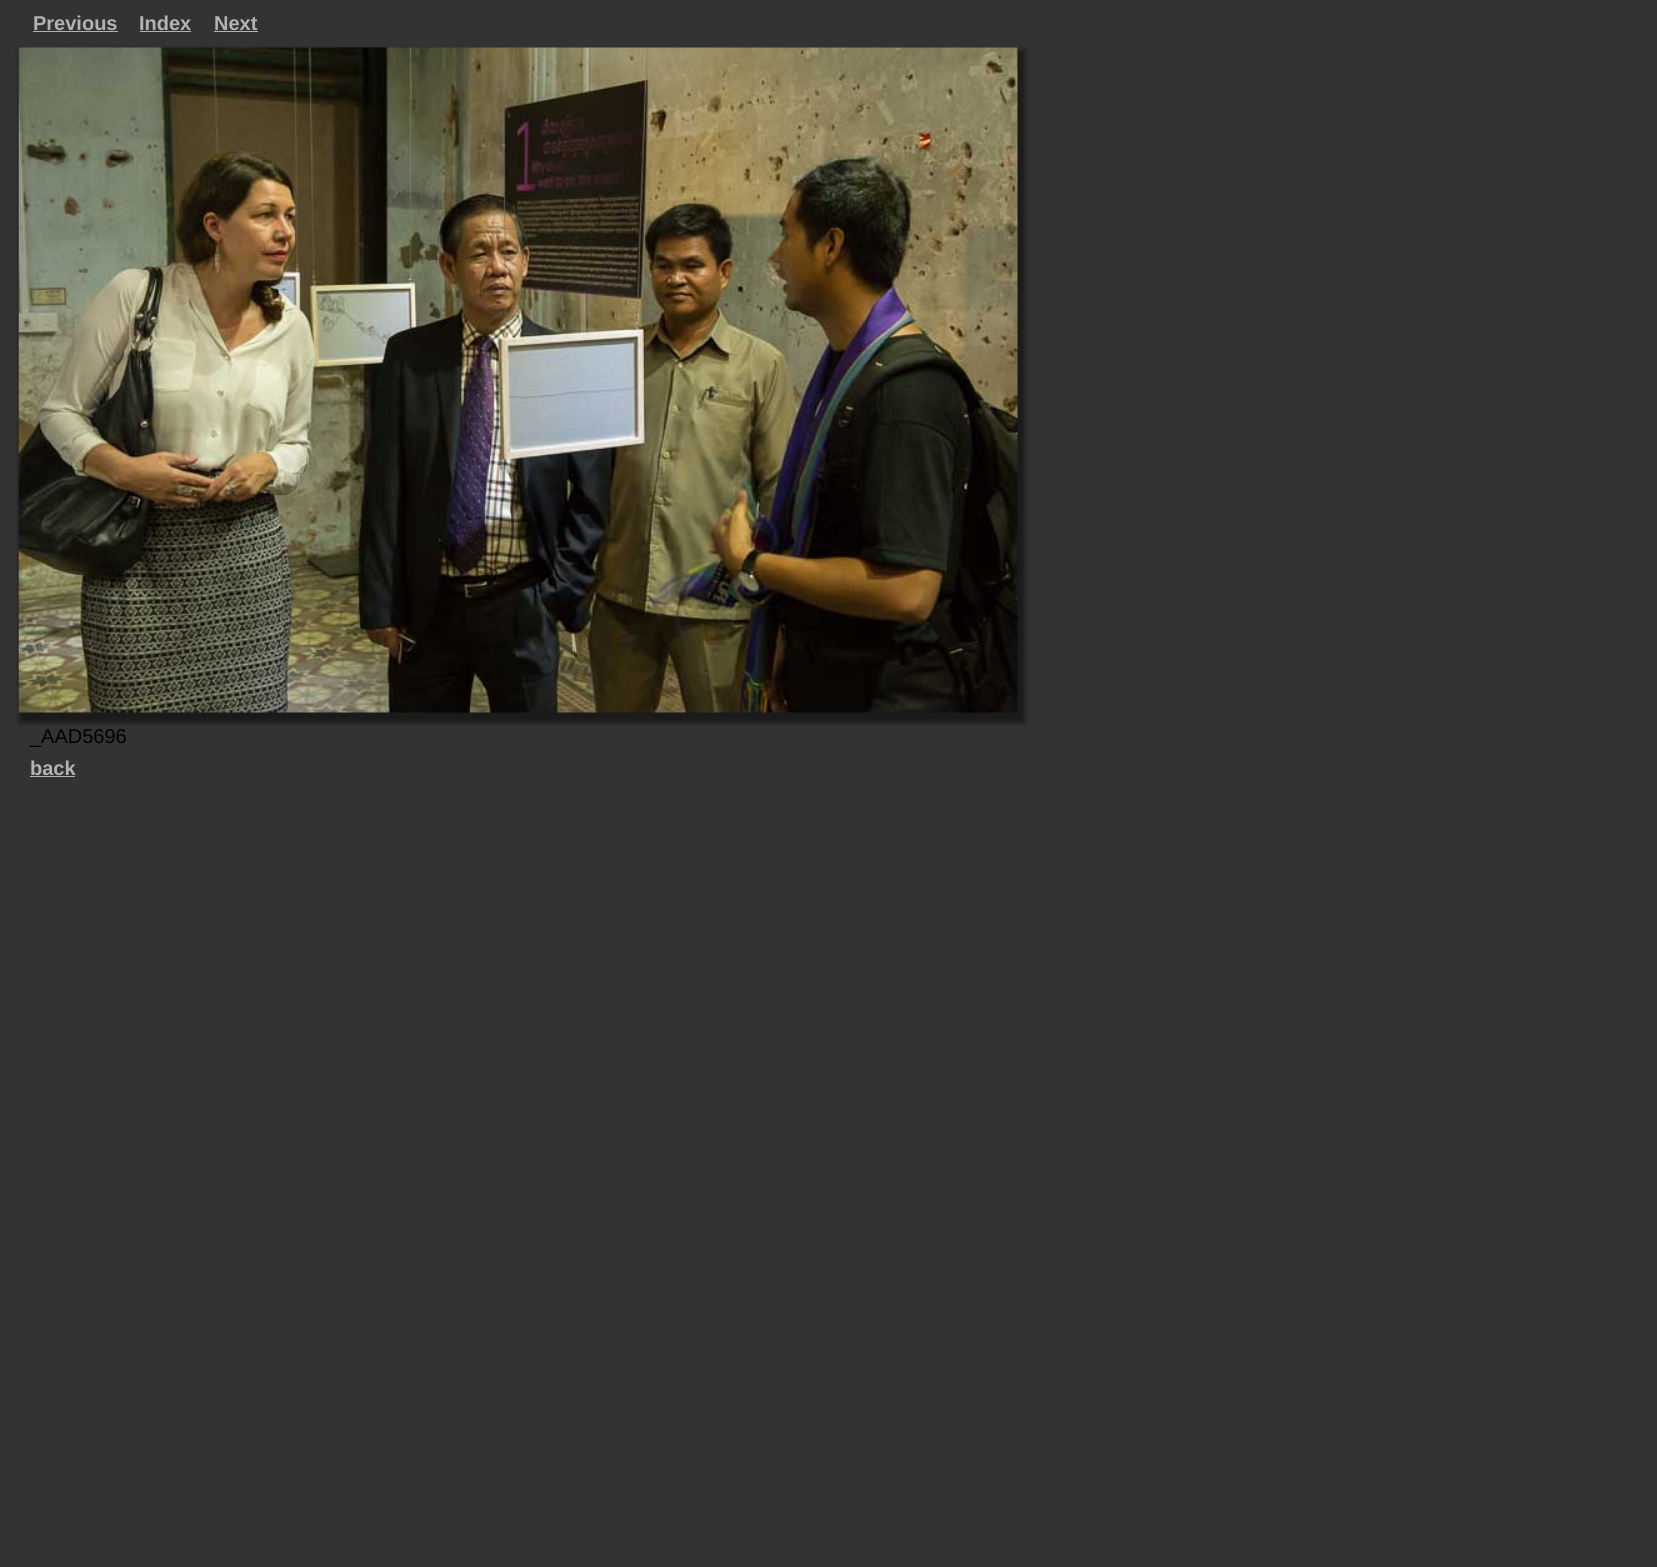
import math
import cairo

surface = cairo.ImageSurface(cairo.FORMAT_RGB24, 1657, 1567)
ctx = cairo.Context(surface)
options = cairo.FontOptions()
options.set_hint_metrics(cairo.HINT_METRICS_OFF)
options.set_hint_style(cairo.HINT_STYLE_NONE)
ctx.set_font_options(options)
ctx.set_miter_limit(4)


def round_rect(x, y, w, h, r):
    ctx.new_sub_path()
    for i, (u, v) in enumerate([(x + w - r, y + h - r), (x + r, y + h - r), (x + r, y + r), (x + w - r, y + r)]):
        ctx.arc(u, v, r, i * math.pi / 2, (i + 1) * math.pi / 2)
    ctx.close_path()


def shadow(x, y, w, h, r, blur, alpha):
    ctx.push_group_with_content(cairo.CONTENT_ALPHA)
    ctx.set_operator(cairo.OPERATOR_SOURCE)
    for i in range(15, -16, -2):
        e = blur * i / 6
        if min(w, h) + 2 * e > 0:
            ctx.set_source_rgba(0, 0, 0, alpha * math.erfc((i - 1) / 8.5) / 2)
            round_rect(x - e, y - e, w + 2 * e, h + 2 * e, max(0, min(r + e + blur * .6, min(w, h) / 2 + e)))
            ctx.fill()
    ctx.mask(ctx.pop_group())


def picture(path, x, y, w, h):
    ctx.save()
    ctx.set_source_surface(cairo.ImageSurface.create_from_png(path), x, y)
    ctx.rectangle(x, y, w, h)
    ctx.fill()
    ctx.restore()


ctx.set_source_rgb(0.2, 0.2, 0.2)
ctx.paint()
ctx.select_font_face("Liberation Sans", cairo.FONT_SLANT_NORMAL, cairo.FONT_WEIGHT_BOLD)
ctx.set_font_size(20)
ctx.set_source_rgb(0.702, 0.702, 0.702)
ctx.move_to(33, 30)
ctx.show_text("Previous")
ctx.rectangle(33, 31, 85, 1)
ctx.fill()
ctx.move_to(139, 30)
ctx.show_text("Index")
ctx.rectangle(140, 31, 51, 1)
ctx.fill()
ctx.move_to(214, 30)
ctx.show_text("Next")
ctx.rectangle(214, 31, 44, 1)
ctx.fill()
ctx.set_source_rgb(0.102, 0.102, 0.102)
shadow(19, 50, 1006, 673, 0, 2.5, 1)
picture("img1.png", 18, 47, 1000, 666)
ctx.select_font_face("Liberation Sans")
ctx.set_source_rgb(0, 0, 0)
ctx.move_to(30, 743)
ctx.show_text("_AAD5696")
ctx.select_font_face("Liberation Sans", cairo.FONT_SLANT_NORMAL, cairo.FONT_WEIGHT_BOLD)
ctx.set_source_rgb(0.702, 0.702, 0.702)
ctx.move_to(30, 775)
ctx.show_text("back")
ctx.rectangle(30, 776, 45, 1)
ctx.fill()
surface.write_to_png("page.png")
